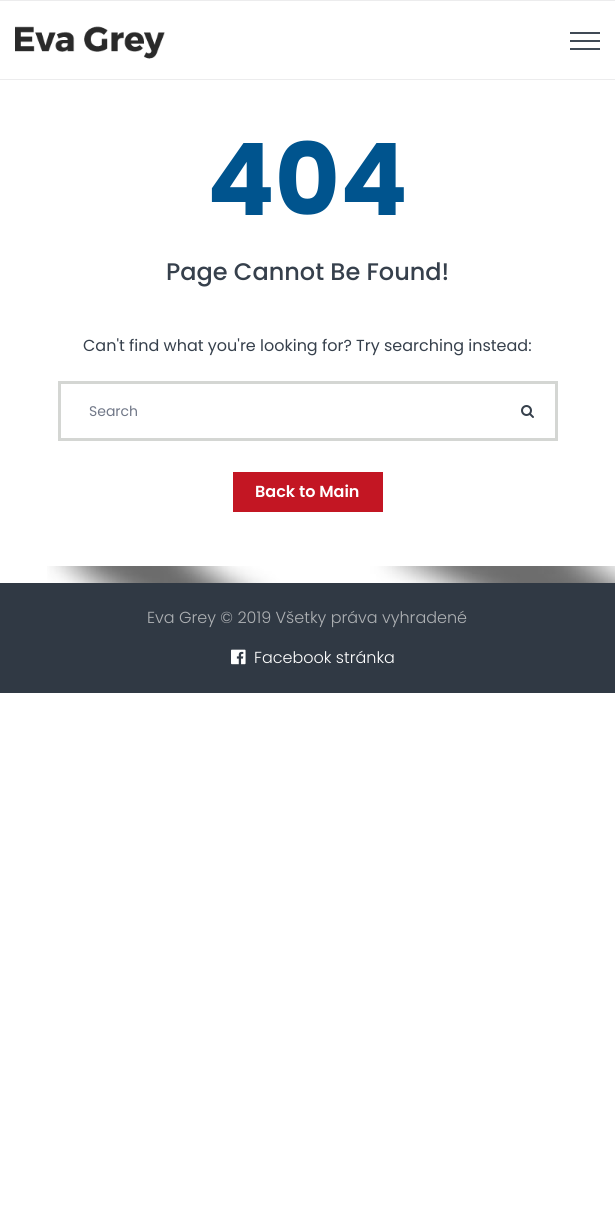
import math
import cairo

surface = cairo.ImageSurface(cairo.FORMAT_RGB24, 615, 1206)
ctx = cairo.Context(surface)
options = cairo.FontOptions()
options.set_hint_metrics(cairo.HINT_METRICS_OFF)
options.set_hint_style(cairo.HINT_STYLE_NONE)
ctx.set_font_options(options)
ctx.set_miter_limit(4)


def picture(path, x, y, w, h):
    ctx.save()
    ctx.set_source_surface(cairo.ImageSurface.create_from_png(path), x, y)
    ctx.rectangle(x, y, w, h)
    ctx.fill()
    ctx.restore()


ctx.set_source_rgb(1, 1, 1)
ctx.paint()
ctx.set_source_rgb(0.922, 0.925, 0.929)
ctx.rectangle(0, 0, 615, 1)
ctx.fill()
picture("img1.png", 15, 26, 150, 33)
ctx.set_source_rgb(0.251, 0.29, 0.333)
ctx.rectangle(570, 32, 30, 2)
ctx.fill()
ctx.rectangle(570, 48, 30, 2)
ctx.fill()
ctx.rectangle(570, 40, 30, 2)
ctx.fill()
ctx.set_source_rgb(0.922, 0.925, 0.929)
ctx.rectangle(0, 79, 615, 1)
ctx.fill()
picture("img2.png", 47, 566, 568, 17)
ctx.select_font_face("Poppins", cairo.FONT_SLANT_NORMAL, cairo.FONT_WEIGHT_BOLD)
ctx.set_font_size(100)
ctx.set_source_rgb(0, 0.329, 0.557)
ctx.move_to(207, 215)
ctx.show_text("404")
ctx.select_font_face("Poppins Medium")
ctx.set_font_size(24)
ctx.set_source_rgb(0.212, 0.251, 0.298)
ctx.move_to(166, 280)
ctx.show_text("Page Cannot Be Found!")
ctx.select_font_face("Poppins")
ctx.set_font_size(16)
ctx.move_to(83, 351)
ctx.show_text("Can't find what you're looking for? Try searching instead:")
ctx.rectangle(59.5, 382.5, 497, 57)
ctx.set_source_rgb(0.831, 0.839, 0.827)
ctx.set_line_width(3)
ctx.stroke()
ctx.set_font_size(14)
ctx.set_source_rgb(0.439, 0.467, 0.529)
ctx.move_to(89, 416)
ctx.show_text("Search")
picture("img3.png", 521, 405, 13, 13)
ctx.set_source_rgb(0.765, 0.086, 0.137)
ctx.rectangle(233, 472, 150, 40)
ctx.fill()
ctx.select_font_face("Poppins SemiBold")
ctx.set_font_size(16)
ctx.set_source_rgb(1, 1, 1)
ctx.move_to(255, 497)
ctx.show_text("Back to Main")
ctx.set_source_rgb(0.188, 0.224, 0.267)
ctx.rectangle(0, 583, 615, 110)
ctx.fill()
ctx.select_font_face("Poppins Light")
ctx.set_source_rgb(0.682, 0.694, 0.706)
ctx.move_to(147, 623)
ctx.show_text("Eva Grey © 2019 Všetky práva vyhradené")
picture("img4.png", 231, 649, 15, 16)
ctx.set_source_rgb(1, 1, 1)
ctx.move_to(254, 663)
ctx.show_text("Facebook stránka")
surface.write_to_png("page.png")
